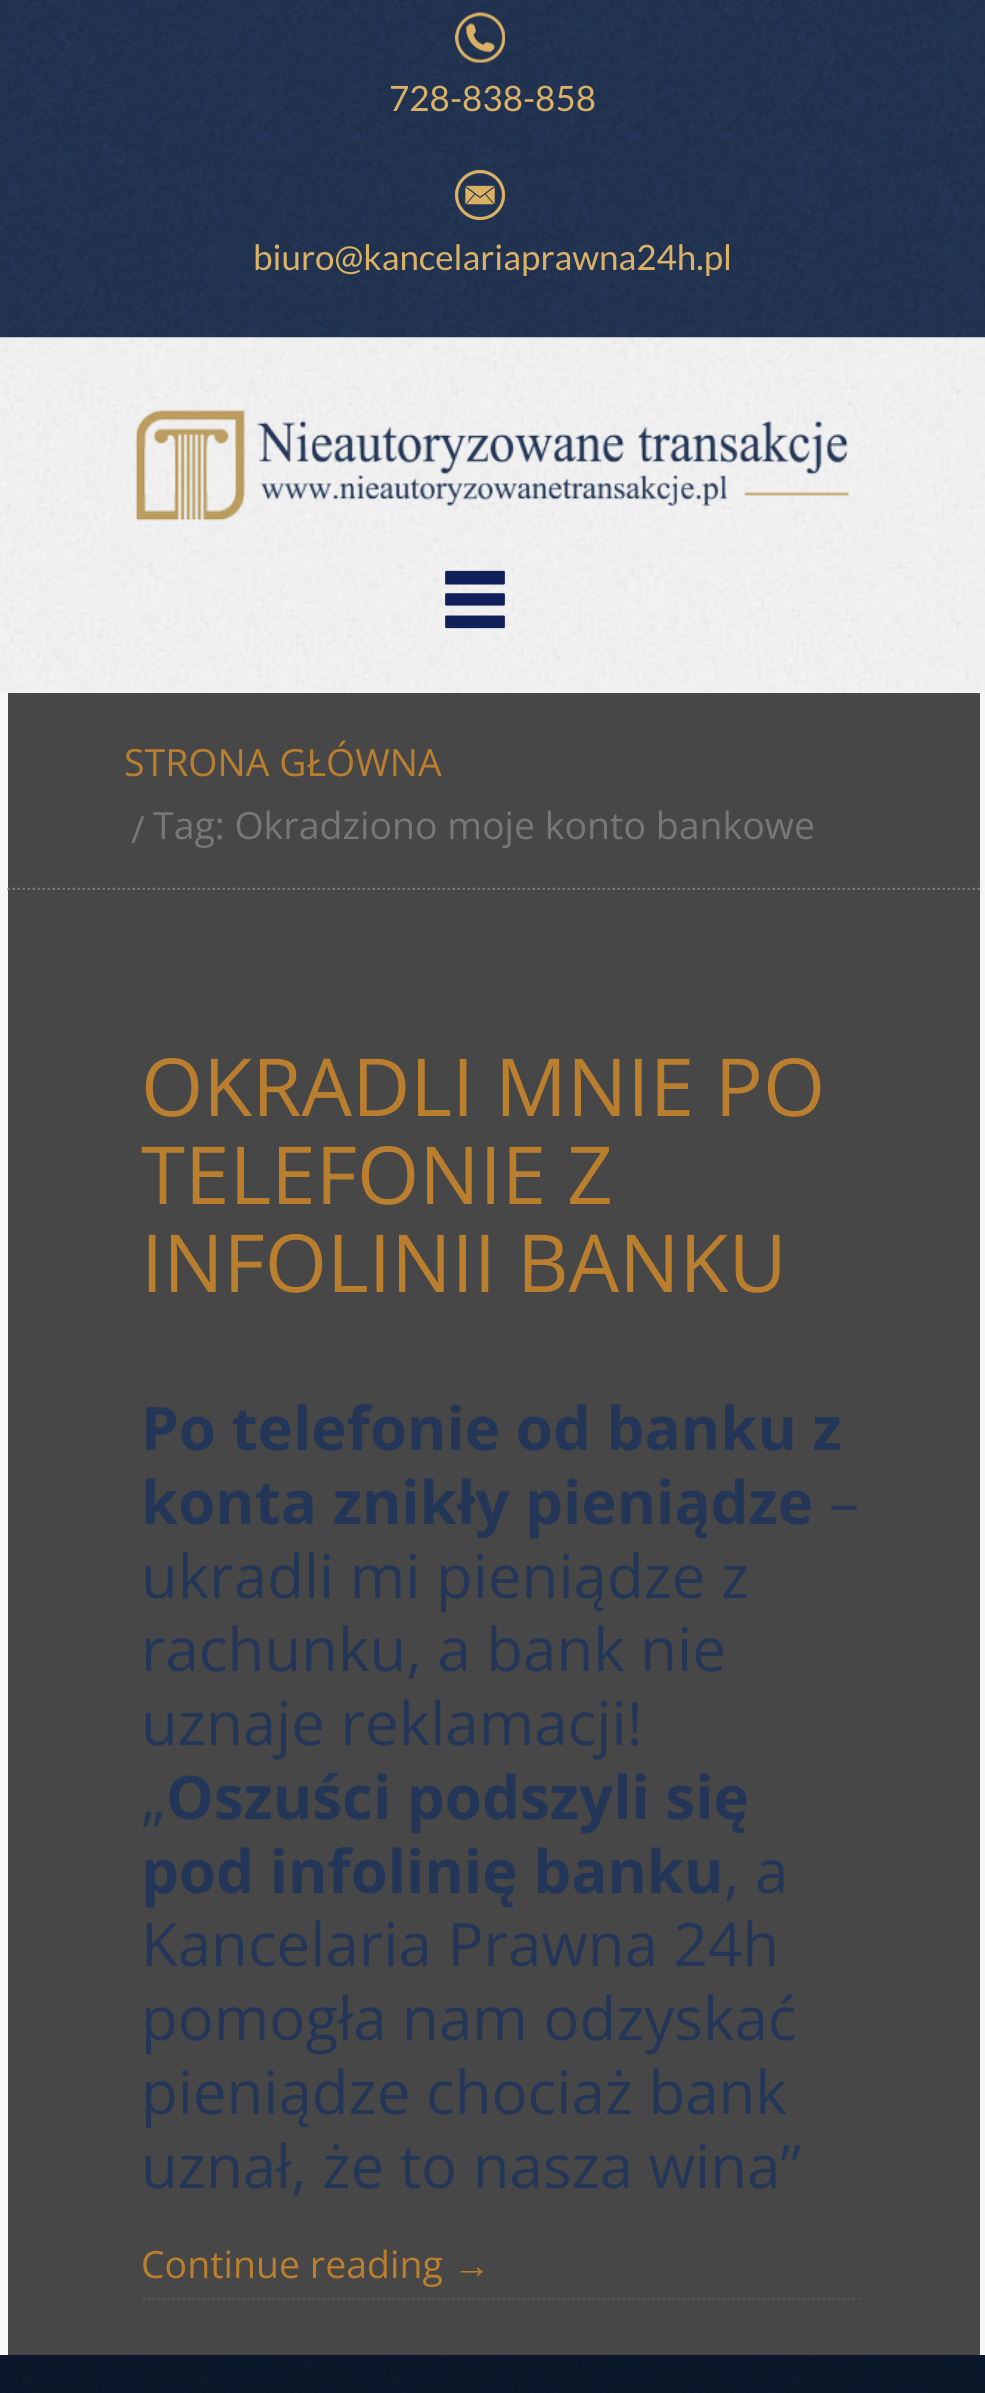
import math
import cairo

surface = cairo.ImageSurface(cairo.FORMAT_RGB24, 985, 2393)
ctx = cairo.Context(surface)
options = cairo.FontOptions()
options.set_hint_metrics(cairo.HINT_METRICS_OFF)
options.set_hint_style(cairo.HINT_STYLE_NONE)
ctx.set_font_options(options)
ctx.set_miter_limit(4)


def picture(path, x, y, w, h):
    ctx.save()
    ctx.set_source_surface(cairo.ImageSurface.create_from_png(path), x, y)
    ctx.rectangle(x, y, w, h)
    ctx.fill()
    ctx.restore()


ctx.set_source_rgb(0.961, 0.961, 0.961)
ctx.paint()
picture("img1.png", 0, 0, 985, 338)
picture("img2.png", 455, 12, 50, 51)
ctx.select_font_face("Lato")
ctx.set_font_size(35)
ctx.set_source_rgb(0.859, 0.698, 0.4)
ctx.move_to(389, 111)
ctx.show_text("728-838-858")
picture("img3.png", 455, 170, 50, 50)
ctx.move_to(253, 270)
ctx.show_text("biuro@kancelariaprawna24h.pl")
picture("img4.png", 0, 337, 985, 356)
picture("img5.png", 135, 410, 715, 111)
picture("img6.png", 445, 570, 60, 59)
ctx.set_source_rgb(0.278, 0.278, 0.278)
ctx.rectangle(8, 693, 972, 197)
ctx.fill()
ctx.new_path()
ctx.move_to(7.5, 889)
ctx.line_to(980, 889)
ctx.set_source_rgb(0.467, 0.467, 0.467)
ctx.set_line_width(2.5)
ctx.set_dash([2.5, 2.5])
ctx.stroke()
ctx.select_font_face("Open Sans")
ctx.set_font_size(37.5)
ctx.set_source_rgb(0.729, 0.494, 0.184)
ctx.move_to(124, 776)
ctx.show_text("STRONA GŁÓWNA")
ctx.set_source_rgb(0.467, 0.467, 0.467)
ctx.move_to(131, 843)
ctx.show_text("/")
ctx.move_to(153, 839)
ctx.show_text("Tag: Okradziono moje konto bankowe")
ctx.set_source_rgba(0, 0, 0, 0.71)
ctx.rectangle(8, 890, 972, 1465)
ctx.fill()
ctx.set_font_size(80)
ctx.set_source_rgb(0.729, 0.494, 0.184)
ctx.move_to(141, 1116)
ctx.show_text("OKRADLI MNIE PO")
ctx.move_to(141, 1204)
ctx.show_text("TELEFONIE Z")
ctx.move_to(141, 1292)
ctx.show_text("INFOLINII BANKU")
ctx.new_path()
ctx.move_to(142.5, 2299)
ctx.line_to(862.5, 2299)
ctx.set_source_rgb(0.333, 0.333, 0.333)
ctx.stroke()
ctx.select_font_face("Open Sans", cairo.FONT_SLANT_NORMAL, cairo.FONT_WEIGHT_BOLD)
ctx.set_font_size(60)
ctx.set_source_rgb(0.137, 0.212, 0.341)
ctx.move_to(141, 1450)
ctx.show_text("Po telefonie od banku z")
ctx.move_to(141, 1524)
ctx.show_text("konta znikły pieniądze")
ctx.select_font_face("Open Sans")
ctx.move_to(829, 1524)
ctx.show_text("–")
ctx.move_to(141, 1598)
ctx.show_text("ukradli mi pieniądze z")
ctx.move_to(141, 1671)
ctx.show_text("rachunku, a bank nie")
ctx.move_to(141, 1745)
ctx.show_text("uznaje reklamacji!")
ctx.move_to(141, 1819)
ctx.show_text("„")
ctx.select_font_face("Open Sans", cairo.FONT_SLANT_NORMAL, cairo.FONT_WEIGHT_BOLD)
ctx.move_to(166, 1819)
ctx.show_text("Oszuści podszyli się")
ctx.move_to(141, 1893)
ctx.show_text("pod infolinię banku")
ctx.select_font_face("Open Sans")
ctx.move_to(724, 1893)
ctx.show_text(", a")
ctx.move_to(141, 1966)
ctx.show_text("Kancelaria Prawna 24h")
ctx.move_to(141, 2040)
ctx.show_text("pomogła nam odzyskać")
ctx.move_to(141, 2114)
ctx.show_text("pieniądze chociaż bank")
ctx.move_to(141, 2188)
ctx.show_text("uznał, że to nasza wina”")
ctx.set_font_size(37.5)
ctx.set_source_rgb(0.729, 0.494, 0.184)
ctx.move_to(141, 2278)
ctx.show_text("Continue reading")
ctx.select_font_face("Liberation Serif")
ctx.move_to(453, 2278)
ctx.show_text("→")
picture("img7.png", 0, 2355, 985, 38)
surface.write_to_png("page.png")
